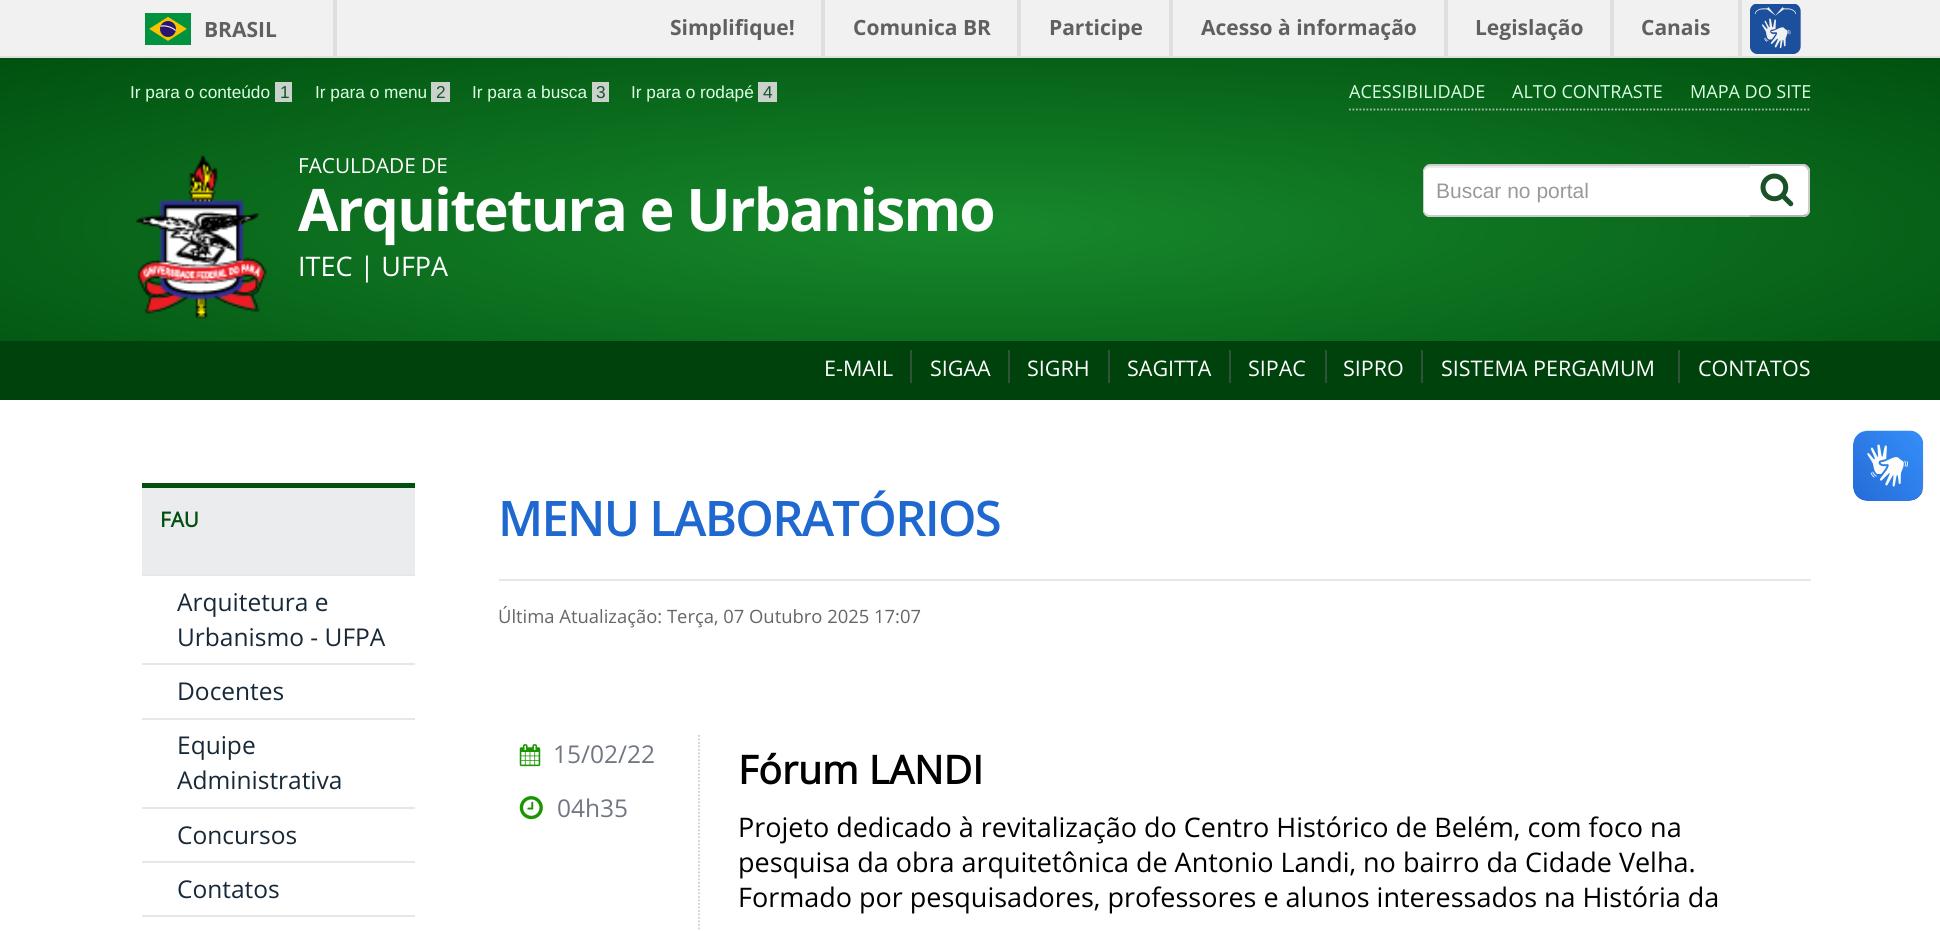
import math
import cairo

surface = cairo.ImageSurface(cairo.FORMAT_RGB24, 1940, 931)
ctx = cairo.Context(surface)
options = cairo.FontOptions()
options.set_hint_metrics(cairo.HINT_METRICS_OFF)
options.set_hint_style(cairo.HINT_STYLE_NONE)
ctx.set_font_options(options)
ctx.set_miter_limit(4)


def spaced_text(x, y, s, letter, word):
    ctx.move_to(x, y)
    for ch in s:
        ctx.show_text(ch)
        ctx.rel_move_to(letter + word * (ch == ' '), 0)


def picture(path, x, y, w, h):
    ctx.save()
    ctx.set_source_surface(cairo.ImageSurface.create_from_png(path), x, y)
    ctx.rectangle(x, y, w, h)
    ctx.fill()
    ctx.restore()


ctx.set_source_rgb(1, 1, 1)
ctx.paint()
ctx.set_source_rgb(0.945, 0.945, 0.945)
ctx.rectangle(0, 0, 1940, 56)
ctx.fill()
ctx.set_source_rgb(0.875, 0.875, 0.875)
ctx.rectangle(0, 56, 1940, 2)
ctx.fill()
ctx.rectangle(333, 0, 4, 56)
ctx.fill()
picture("img1.png", 145, 13, 46, 32)
ctx.select_font_face("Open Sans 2", cairo.FONT_SLANT_NORMAL, cairo.FONT_WEIGHT_BOLD)
ctx.set_font_size(21)
ctx.set_source_rgb(0.376, 0.376, 0.376)
ctx.move_to(204, 37)
ctx.show_text("BRASIL")
ctx.set_source_rgb(0.875, 0.875, 0.875)
ctx.rectangle(821, 0, 4, 56)
ctx.fill()
ctx.set_source_rgb(0.376, 0.376, 0.376)
ctx.move_to(670, 35)
ctx.show_text("Simplifique!")
ctx.set_source_rgb(0.875, 0.875, 0.875)
ctx.rectangle(1017, 0, 4, 56)
ctx.fill()
ctx.set_source_rgb(0.376, 0.376, 0.376)
ctx.move_to(853, 35)
ctx.show_text("Comunica BR")
ctx.set_source_rgb(0.875, 0.875, 0.875)
ctx.rectangle(1169, 0, 4, 56)
ctx.fill()
ctx.set_source_rgb(0.376, 0.376, 0.376)
ctx.move_to(1049, 35)
ctx.show_text("Participe")
ctx.set_source_rgb(0.875, 0.875, 0.875)
ctx.rectangle(1444, 0, 4, 56)
ctx.fill()
ctx.set_source_rgb(0.376, 0.376, 0.376)
ctx.move_to(1201, 35)
ctx.show_text("Acesso à informação")
ctx.set_source_rgb(0.875, 0.875, 0.875)
ctx.rectangle(1610, 0, 4, 56)
ctx.fill()
ctx.set_source_rgb(0.376, 0.376, 0.376)
ctx.move_to(1475, 35)
ctx.show_text("Legislação")
ctx.set_source_rgb(0.875, 0.875, 0.875)
ctx.rectangle(1738, 0, 4, 56)
ctx.fill()
ctx.set_source_rgb(0.376, 0.376, 0.376)
ctx.move_to(1641, 35)
ctx.show_text("Canais")
picture("img2.png", 1750, 4, 51, 50)
gradient = cairo.RadialGradient(0, 0, 0, 0, 0, 1)
gradient.set_matrix(cairo.Matrix(1 / 1372, 0, 0, 1 / 241, -1 * 970 / 1372, -1 * 228 / 241))
gradient.add_color_stop_rgba(0.01, 0.09, 0.533, 0.173, 1)
gradient.add_color_stop_rgba(1, 0, 0.318, 0.059, 1)
ctx.set_source(gradient)
ctx.rectangle(0, 58, 1940, 283)
ctx.fill()
ctx.select_font_face("Liberation Sans")
ctx.set_font_size(17.25)
ctx.set_source_rgb(0.863, 1, 0.89)
ctx.move_to(130, 98)
ctx.show_text("Ir para o conteúdo")
ctx.set_source_rgb(0.792, 0.824, 0.8)
ctx.rectangle(275, 82, 17, 20)
ctx.fill()
ctx.set_source_rgb(0.098, 0.318, 0.157)
ctx.move_to(280, 98)
ctx.show_text("1")
ctx.set_source_rgb(0.863, 1, 0.89)
ctx.move_to(315, 98)
ctx.show_text("Ir para o menu")
ctx.set_source_rgb(0.792, 0.824, 0.8)
ctx.rectangle(431, 82, 19, 20)
ctx.fill()
ctx.set_source_rgb(0.098, 0.318, 0.157)
ctx.move_to(436, 98)
ctx.show_text("2")
ctx.set_source_rgb(0.863, 1, 0.89)
ctx.move_to(472, 98)
ctx.show_text("Ir para a busca")
ctx.set_source_rgb(0.792, 0.824, 0.8)
ctx.rectangle(592, 82, 17, 20)
ctx.fill()
ctx.set_source_rgb(0.098, 0.318, 0.157)
ctx.move_to(596, 98)
ctx.show_text("3")
ctx.set_source_rgb(0.863, 1, 0.89)
ctx.move_to(631, 98)
ctx.show_text("Ir para o rodapé")
ctx.set_source_rgb(0.792, 0.824, 0.8)
ctx.rectangle(758, 82, 19, 20)
ctx.fill()
ctx.set_source_rgb(0.098, 0.318, 0.157)
ctx.move_to(763, 98)
ctx.show_text("4")
ctx.new_path()
ctx.move_to(1349, 109.5)
ctx.line_to(1809.5, 109.5)
ctx.set_source_rgb(0.671, 0.745, 0.69)
ctx.set_line_width(1.8)
ctx.set_dash([1.75, 1.75])
ctx.stroke()
ctx.select_font_face("Open Sans")
ctx.set_font_size(18)
ctx.set_source_rgb(0.863, 1, 0.89)
ctx.move_to(1349, 98)
ctx.show_text("ACESSIBILIDADE")
ctx.move_to(1512, 98)
ctx.show_text("ALTO CONTRASTE")
ctx.move_to(1690, 98)
ctx.show_text("MAPA DO SITE")
picture("img3.png", 135, 155, 132, 164)
ctx.set_font_size(20.75)
ctx.set_source_rgb(1, 1, 1)
ctx.move_to(298, 173)
ctx.show_text("FACULDADE DE")
ctx.select_font_face("Open Sans", cairo.FONT_SLANT_NORMAL, cairo.FONT_WEIGHT_BOLD)
ctx.set_font_size(58.75)
spaced_text(298, 231, "Arquitetura e Urbanismo", -1.75, 0)
ctx.select_font_face("Open Sans")
ctx.set_font_size(26.95)
ctx.move_to(298, 276)
ctx.show_text("ITEC | UFPA")
ctx.new_path()
ctx.move_to(1430, 165)
ctx.line_to(1752, 165)
ctx.line_to(1752, 217)
ctx.line_to(1430, 217)
ctx.curve_to(1426, 217, 1423, 214, 1423, 210)
ctx.line_to(1423, 172)
ctx.curve_to(1423, 168, 1426, 165, 1430, 165)
ctx.close_path()
ctx.fill()
ctx.set_source_rgb(0.925, 0.925, 0.925)
ctx.new_path()
ctx.move_to(1430, 168)
ctx.line_to(1752, 168)
ctx.line_to(1752, 166)
ctx.line_to(1430, 166)
ctx.curve_to(1428, 166, 1425, 168, 1425, 170)
ctx.curve_to(1426, 169, 1428, 168, 1430, 168)
ctx.close_path()
ctx.fill()
ctx.set_source_rgb(0.8, 0.8, 0.8)
ctx.set_fill_rule(cairo.FILL_RULE_EVEN_ODD)
ctx.new_path()
ctx.move_to(1430, 164)
ctx.line_to(1752, 164)
ctx.line_to(1752, 217)
ctx.line_to(1430, 217)
ctx.curve_to(1426, 217, 1423, 214, 1423, 210)
ctx.line_to(1423, 172)
ctx.curve_to(1423, 168, 1426, 164, 1430, 164)
ctx.close_path()
ctx.move_to(1430, 166)
ctx.line_to(1752, 166)
ctx.line_to(1752, 215)
ctx.line_to(1430, 215)
ctx.curve_to(1427, 215, 1424, 213, 1424, 210)
ctx.line_to(1424, 172)
ctx.curve_to(1424, 169, 1427, 166, 1430, 166)
ctx.close_path()
ctx.fill()
ctx.select_font_face("Liberation Sans")
ctx.set_font_size(21)
ctx.set_source_rgb(0.6, 0.6, 0.6)
ctx.move_to(1436, 198)
ctx.show_text("Buscar no portal")
ctx.set_source_rgb(1, 1, 1)
ctx.new_path()
ctx.move_to(1750, 165)
ctx.line_to(1803, 165)
ctx.curve_to(1807, 165, 1810, 168, 1810, 172)
ctx.line_to(1810, 210)
ctx.curve_to(1810, 214, 1807, 217, 1803, 217)
ctx.line_to(1750, 217)
ctx.close_path()
ctx.fill()
ctx.set_source_rgb(0.8, 0.8, 0.8)
ctx.set_fill_rule(cairo.FILL_RULE_WINDING)
ctx.new_path()
ctx.move_to(1750, 166)
ctx.line_to(1802, 166)
ctx.curve_to(1804, 166, 1805, 167, 1806, 168)
ctx.line_to(1808, 166)
ctx.line_to(1805, 164)
ctx.line_to(1750, 164)
ctx.close_path()
ctx.fill()
ctx.new_path()
ctx.move_to(1806, 214)
ctx.curve_to(1807, 213, 1808, 212, 1808, 210)
ctx.line_to(1808, 172)
ctx.curve_to(1808, 170, 1807, 169, 1806, 168)
ctx.line_to(1808, 166)
ctx.line_to(1810, 169)
ctx.line_to(1810, 212)
ctx.line_to(1808, 215)
ctx.close_path()
ctx.fill()
ctx.set_source_rgb(0.702, 0.702, 0.702)
ctx.new_path()
ctx.move_to(1750, 215)
ctx.line_to(1750, 217)
ctx.line_to(1802, 217)
ctx.curve_to(1804, 217, 1806, 216, 1808, 215)
ctx.line_to(1806, 214)
ctx.curve_to(1805, 214, 1804, 215, 1802, 215)
ctx.close_path()
ctx.fill()
picture("img4.png", 1760, 173, 34, 34)
ctx.set_source_rgb(0, 0.259, 0.047)
ctx.rectangle(0, 341, 1940, 59)
ctx.fill()
ctx.select_font_face("Open Sans")
ctx.set_font_size(21.5)
ctx.set_source_rgb(1, 1, 1)
ctx.move_to(824, 376)
ctx.show_text("E-MAIL")
ctx.set_source_rgb(0.184, 0.329, 0.224)
ctx.rectangle(910, 350, 2, 33)
ctx.fill()
ctx.set_source_rgb(1, 1, 1)
ctx.move_to(930, 376)
ctx.show_text("SIGAA")
ctx.set_source_rgb(0.184, 0.329, 0.224)
ctx.rectangle(1008, 350, 2, 33)
ctx.fill()
ctx.set_source_rgb(1, 1, 1)
ctx.move_to(1027, 376)
ctx.show_text("SIGRH")
ctx.set_source_rgb(0.184, 0.329, 0.224)
ctx.rectangle(1108, 350, 2, 33)
ctx.fill()
ctx.set_source_rgb(1, 1, 1)
ctx.move_to(1127, 376)
ctx.show_text("SAGITTA")
ctx.set_source_rgb(0.184, 0.329, 0.224)
ctx.rectangle(1229, 350, 2, 33)
ctx.fill()
ctx.set_source_rgb(1, 1, 1)
ctx.move_to(1248, 376)
ctx.show_text("SIPAC")
ctx.set_source_rgb(0.184, 0.329, 0.224)
ctx.rectangle(1325, 350, 2, 33)
ctx.fill()
ctx.set_source_rgb(1, 1, 1)
ctx.move_to(1343, 376)
ctx.show_text("SIPRO")
ctx.set_source_rgb(0.184, 0.329, 0.224)
ctx.rectangle(1421, 350, 2, 33)
ctx.fill()
ctx.set_source_rgb(1, 1, 1)
ctx.move_to(1441, 376)
ctx.show_text("SISTEMA PERGAMUM")
ctx.set_source_rgb(0.184, 0.329, 0.224)
ctx.rectangle(1678, 350, 2, 33)
ctx.fill()
ctx.set_source_rgb(1, 1, 1)
ctx.move_to(1698, 376)
ctx.show_text("CONTATOS")
ctx.set_source_rgb(0.918, 0.922, 0.933)
ctx.rectangle(142, 488, 273, 86)
ctx.fill()
ctx.set_source_rgb(0, 0.314, 0.059)
ctx.rectangle(142, 483, 273, 5)
ctx.fill()
ctx.select_font_face("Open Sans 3", cairo.FONT_SLANT_NORMAL, cairo.FONT_WEIGHT_BOLD)
ctx.set_font_size(20.75)
ctx.move_to(160, 527)
ctx.show_text("FAU")
ctx.set_source_rgb(0.91, 0.906, 0.906)
ctx.rectangle(142, 574, 273, 2)
ctx.fill()
ctx.rectangle(142, 663, 273, 2)
ctx.fill()
ctx.select_font_face("Open Sans")
ctx.set_font_size(24.5)
ctx.set_source_rgb(0.09, 0.161, 0.22)
ctx.move_to(177, 611)
ctx.show_text("Arquitetura e")
ctx.move_to(177, 646)
ctx.show_text("Urbanismo - UFPA")
ctx.set_source_rgb(0.91, 0.906, 0.906)
ctx.rectangle(142, 718, 273, 2)
ctx.fill()
ctx.set_source_rgb(0.09, 0.161, 0.22)
ctx.move_to(177, 700)
ctx.show_text("Docentes")
ctx.set_source_rgb(0.91, 0.906, 0.906)
ctx.rectangle(142, 807, 273, 2)
ctx.fill()
ctx.set_source_rgb(0.09, 0.161, 0.22)
ctx.move_to(177, 754)
ctx.show_text("Equipe")
ctx.move_to(177, 789)
ctx.show_text("Administrativa")
ctx.set_source_rgb(0.91, 0.906, 0.906)
ctx.rectangle(142, 861, 273, 2)
ctx.fill()
ctx.set_source_rgb(0.09, 0.161, 0.22)
ctx.move_to(177, 844)
ctx.show_text("Concursos")
ctx.set_source_rgb(0.91, 0.906, 0.906)
ctx.rectangle(142, 915, 273, 2)
ctx.fill()
ctx.set_source_rgb(0.09, 0.161, 0.22)
ctx.move_to(177, 898)
ctx.show_text("Contatos")
ctx.set_source_rgb(0.91, 0.906, 0.906)
ctx.rectangle(499, 579, 1312, 2)
ctx.fill()
ctx.select_font_face("Open Sans SemiBold")
ctx.set_font_size(49)
ctx.set_source_rgb(0.118, 0.408, 0.816)
spaced_text(498, 536, "MENU LABORATÓRIOS", -1.75, 0)
ctx.select_font_face("Open Sans")
ctx.set_font_size(18.4)
ctx.set_source_rgb(0.4, 0.4, 0.4)
ctx.move_to(498, 623)
ctx.show_text("Última Atualização: Terça, 07 Outubro 2025 17:07")
picture("img5.png", 519, 744, 22, 23)
ctx.set_font_size(24.5)
ctx.set_source_rgb(0.443, 0.467, 0.51)
ctx.move_to(553, 763)
ctx.show_text("15/02/22")
picture("img6.png", 519, 796, 24, 24)
ctx.move_to(557, 817)
ctx.show_text("04h35")
ctx.new_path()
ctx.move_to(699, 735)
ctx.line_to(699, 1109.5)
ctx.set_source_rgb(0.812, 0.804, 0.804)
ctx.stroke()
ctx.select_font_face("Open Sans 3", cairo.FONT_SLANT_NORMAL, cairo.FONT_WEIGHT_BOLD)
ctx.set_font_size(39.25)
ctx.set_source_rgb(0, 0, 0)
ctx.move_to(738, 784)
ctx.show_text("Fórum LANDI")
ctx.select_font_face("Open Sans")
ctx.set_font_size(26.95)
ctx.move_to(738, 837)
ctx.show_text("Projeto dedicado à revitalização do Centro Histórico de Belém, com foco na")
ctx.move_to(738, 872)
ctx.show_text("pesquisa da obra arquitetônica de Antonio Landi, no bairro da Cidade Velha.")
ctx.move_to(738, 907)
ctx.show_text("Formado por pesquisadores, professores e alunos interessados na História da")
picture("img7.png", 1853, 430, 71, 71)
picture("img8.png", 1853, 431, 70, 70)
surface.write_to_png("page.png")
